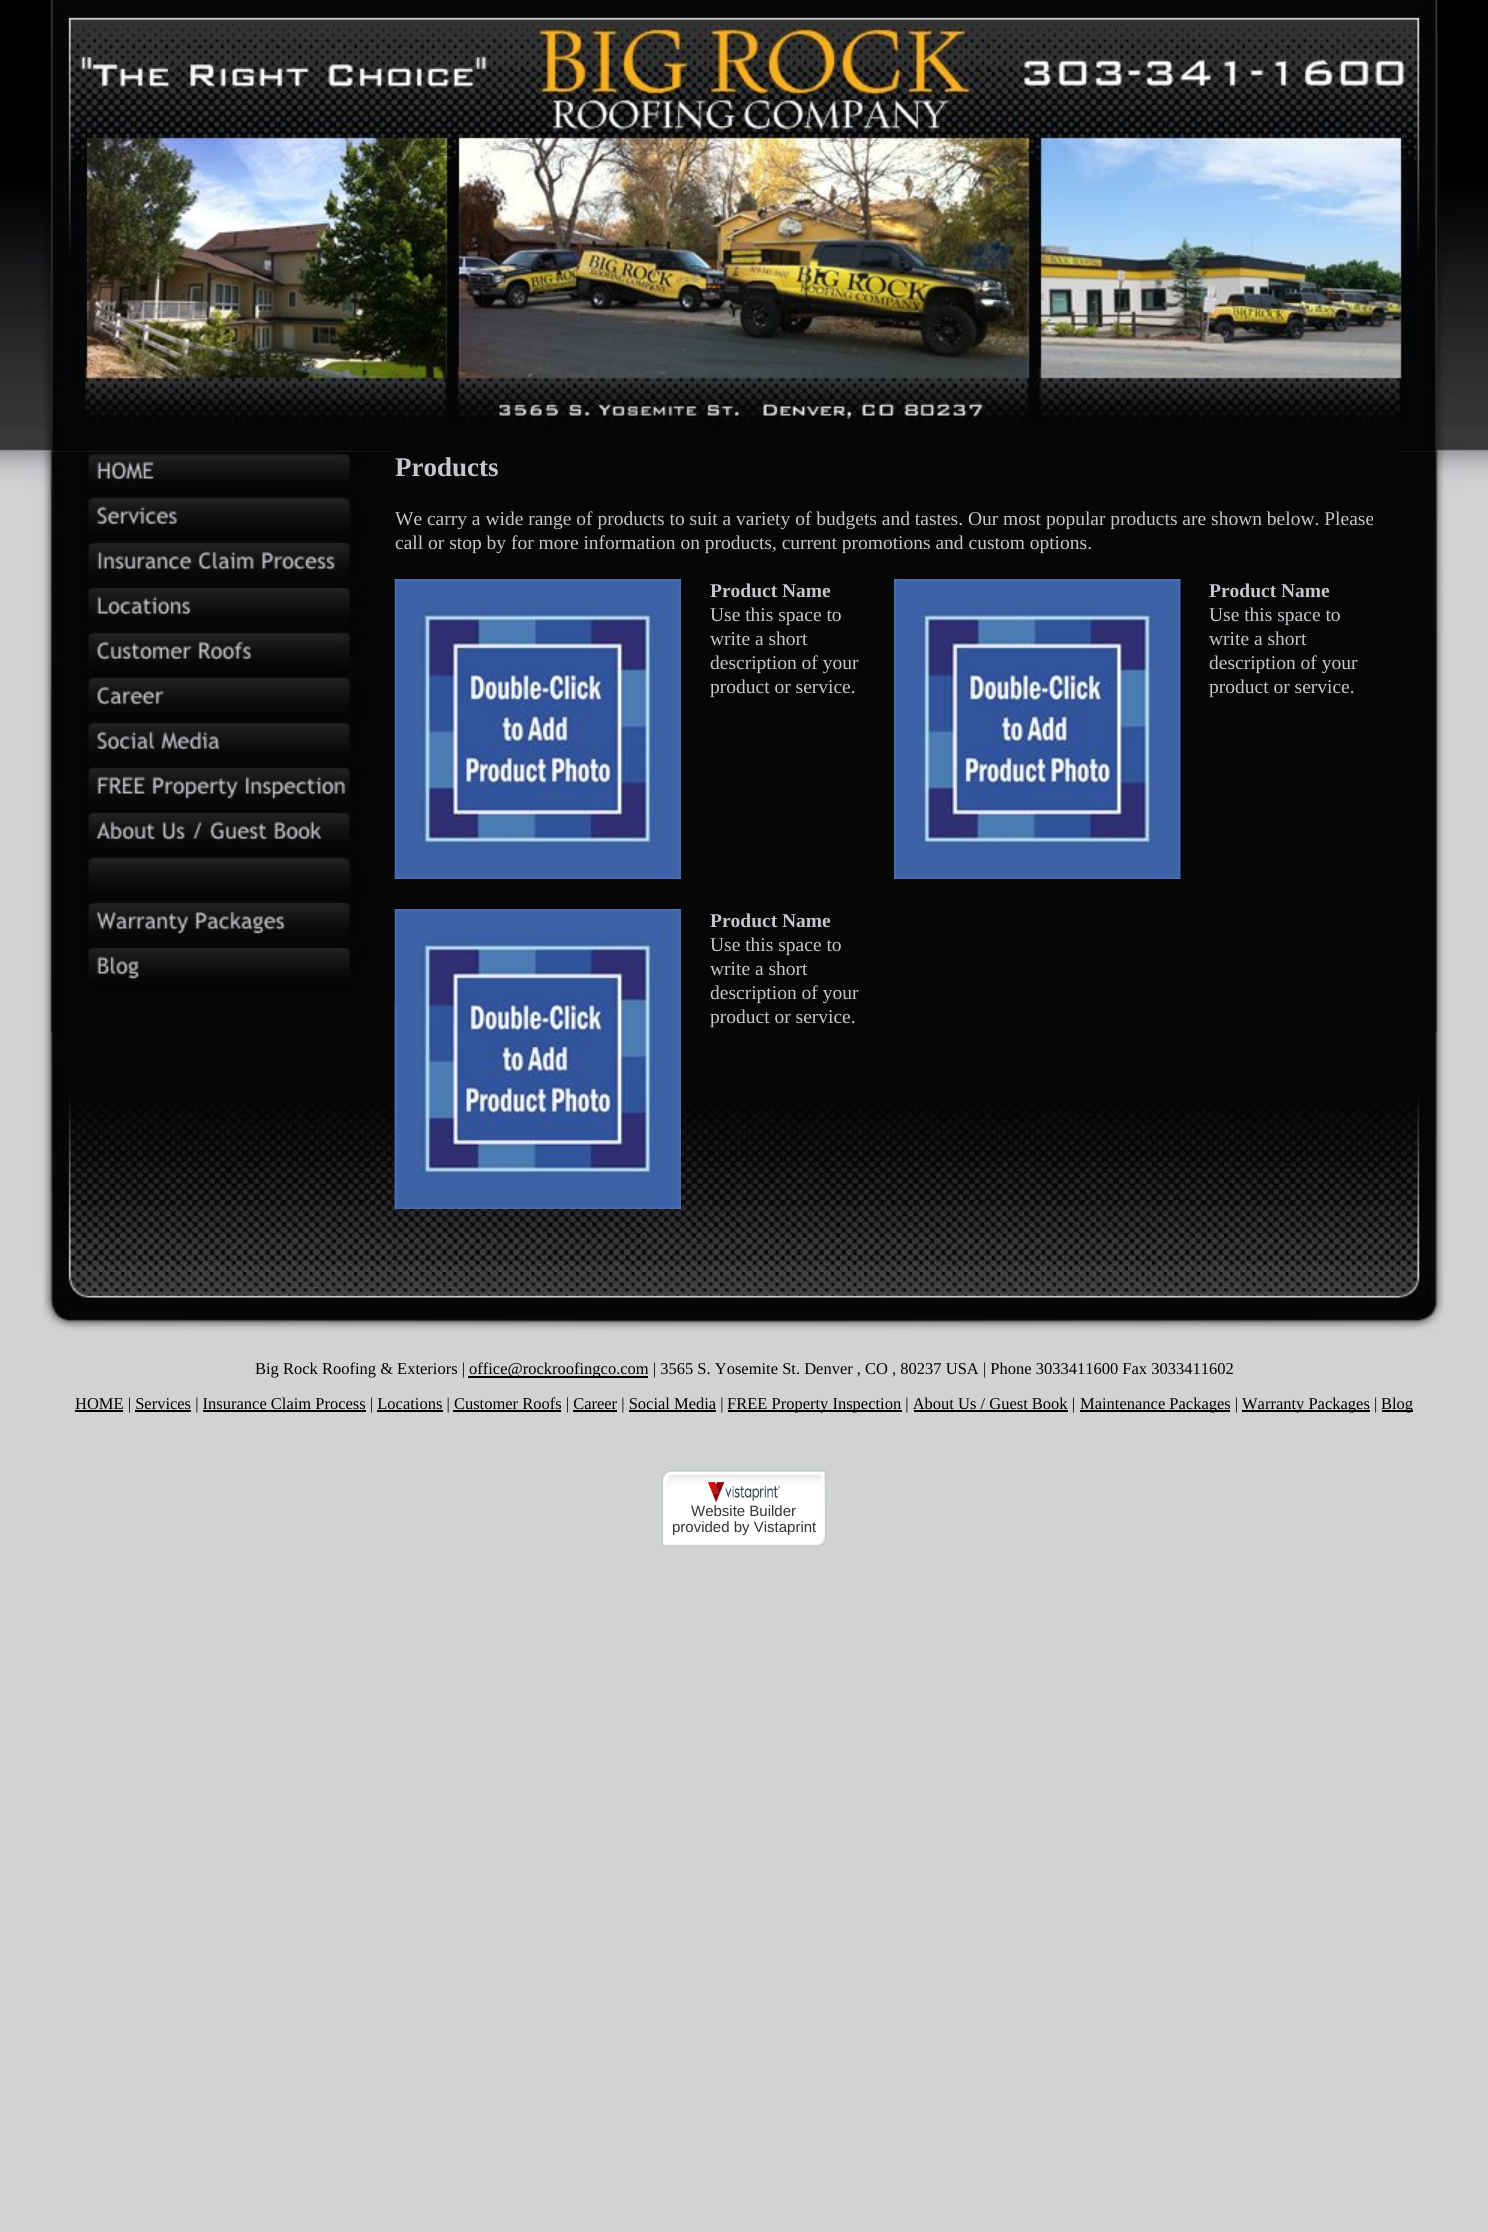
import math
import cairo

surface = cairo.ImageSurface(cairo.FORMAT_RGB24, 1488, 2232)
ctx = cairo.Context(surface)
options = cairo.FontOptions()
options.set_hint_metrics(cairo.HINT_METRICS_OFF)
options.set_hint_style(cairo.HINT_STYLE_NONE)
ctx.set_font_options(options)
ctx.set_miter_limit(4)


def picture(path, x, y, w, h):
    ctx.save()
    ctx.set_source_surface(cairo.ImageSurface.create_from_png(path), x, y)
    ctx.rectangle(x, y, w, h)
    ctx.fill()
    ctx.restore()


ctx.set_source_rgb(0.82, 0.824, 0.831)
ctx.paint()
picture("img1.png", 0, 0, 1488, 481)
picture("img3.png", 24, 451, 370, 821)
ctx.set_source_rgb(0.02, 0.024, 0.031)
ctx.rectangle(394, 451, 1006, 821)
ctx.fill()
picture("img19.png", 1400, 451, 64, 821)
picture("img2.png", 24, 0, 1440, 452)
ctx.select_font_face("Liberation Serif", cairo.FONT_SLANT_NORMAL, cairo.FONT_WEIGHT_BOLD)
ctx.set_font_size(27)
ctx.set_source_rgb(0.776, 0.78, 0.792)
ctx.move_to(395, 476)
ctx.show_text("Products")
ctx.select_font_face("Liberation Serif")
ctx.set_font_size(19.5)
ctx.move_to(395, 525)
ctx.show_text("We carry a wide range of products to suit a variety of budgets and tastes. Our most popular products are shown below. Please")
picture("img16.png", 394, 579, 287, 300)
picture("img21.png", 50, 1032, 345, 240)
picture("img22.png", 394, 1104, 1006, 168)
picture("img18.png", 394, 909, 287, 300)
picture("img4.png", 24, 451, 371, 551)
picture("img5.png", 97, 461, 57, 20)
picture("img6.png", 97, 506, 81, 20)
picture("img7.png", 97, 551, 238, 20)
picture("img8.png", 97, 596, 94, 20)
picture("img9.png", 97, 641, 155, 20)
picture("img10.png", 97, 686, 67, 20)
picture("img11.png", 97, 731, 123, 20)
picture("img12.png", 97, 776, 249, 23)
picture("img13.png", 96, 821, 226, 20)
picture("img14.png", 96, 911, 190, 23)
picture("img15.png", 97, 956, 43, 23)
ctx.move_to(395, 549)
ctx.show_text("call or stop by for more information on products, current promotions and custom options.")
ctx.select_font_face("Liberation Serif", cairo.FONT_SLANT_NORMAL, cairo.FONT_WEIGHT_BOLD)
ctx.move_to(710, 597)
ctx.show_text("Product Name")
ctx.select_font_face("Liberation Serif")
ctx.move_to(710, 621)
ctx.show_text("Use this space to")
ctx.move_to(710, 645)
ctx.show_text("write a short")
ctx.move_to(710, 669)
ctx.show_text("description of your")
ctx.move_to(710, 693)
ctx.show_text("product or service.")
picture("img17.png", 894, 579, 287, 300)
ctx.select_font_face("Liberation Serif", cairo.FONT_SLANT_NORMAL, cairo.FONT_WEIGHT_BOLD)
ctx.move_to(1209, 597)
ctx.show_text("Product Name")
ctx.select_font_face("Liberation Serif")
ctx.move_to(1209, 621)
ctx.show_text("Use this space to")
ctx.move_to(1209, 645)
ctx.show_text("write a short")
ctx.move_to(1209, 669)
ctx.show_text("description of your")
ctx.move_to(1209, 693)
ctx.show_text("product or service.")
ctx.select_font_face("Liberation Serif", cairo.FONT_SLANT_NORMAL, cairo.FONT_WEIGHT_BOLD)
ctx.move_to(710, 927)
ctx.show_text("Product Name")
ctx.select_font_face("Liberation Serif")
ctx.move_to(710, 951)
ctx.show_text("Use this space to")
ctx.move_to(710, 975)
ctx.show_text("write a short")
ctx.move_to(710, 999)
ctx.show_text("description of your")
ctx.move_to(710, 1023)
ctx.show_text("product or service.")
picture("img20.png", 1400, 451, 64, 181)
picture("img23.png", 1399, 1032, 39, 240)
picture("img24.png", 42, 1272, 1403, 59)
ctx.set_font_size(16.5)
ctx.set_source_rgb(0, 0, 0)
ctx.move_to(255, 1374)
ctx.show_text("Big Rock Roofing & Exteriors |")
ctx.rectangle(468, 1376, 180, 2)
ctx.fill()
ctx.move_to(469, 1374)
ctx.show_text("office@rockroofingco.com | 3565 S. Yosemite St. Denver , CO , 80237 USA | Phone 3033411600 Fax 3033411602")
ctx.rectangle(75, 1410, 48, 2)
ctx.fill()
ctx.move_to(75, 1409)
ctx.show_text("HOME | Services | Insurance Claim Process | Locations | Customer Roofs | Career | Social Media |")
ctx.rectangle(728, 1410, 174, 2)
ctx.fill()
ctx.move_to(727, 1409)
ctx.show_text("FREE Property Inspection | About Us / Guest Book |")
ctx.rectangle(1080, 1410, 150, 2)
ctx.fill()
ctx.move_to(1080, 1409)
ctx.show_text("Maintenance Packages |")
ctx.rectangle(1242, 1410, 128, 2)
ctx.fill()
ctx.move_to(1242, 1409)
ctx.show_text("Warranty Packages |")
ctx.rectangle(1382, 1410, 31, 2)
ctx.fill()
ctx.move_to(1381, 1409)
ctx.show_text("Blog")
ctx.rectangle(135, 1410, 56, 2)
ctx.fill()
ctx.rectangle(203, 1410, 163, 2)
ctx.fill()
ctx.rectangle(377, 1410, 66, 2)
ctx.fill()
ctx.rectangle(453, 1410, 108, 2)
ctx.fill()
ctx.rectangle(573, 1410, 44, 2)
ctx.fill()
ctx.rectangle(629, 1410, 87, 2)
ctx.fill()
ctx.rectangle(914, 1410, 154, 2)
ctx.fill()
picture("img25.png", 661, 1470, 11, 77)
picture("img26.png", 672, 1470, 144, 77)
picture("img27.png", 708, 1482, 72, 21)
ctx.select_font_face("Liberation Sans")
ctx.set_font_size(15)
ctx.set_source_rgb(0.2, 0.2, 0.2)
ctx.move_to(691, 1516)
ctx.show_text("Website Builder")
ctx.move_to(672, 1532)
ctx.show_text("provided by Vistaprint")
picture("img28.png", 816, 1470, 11, 77)
surface.write_to_png("page.png")
